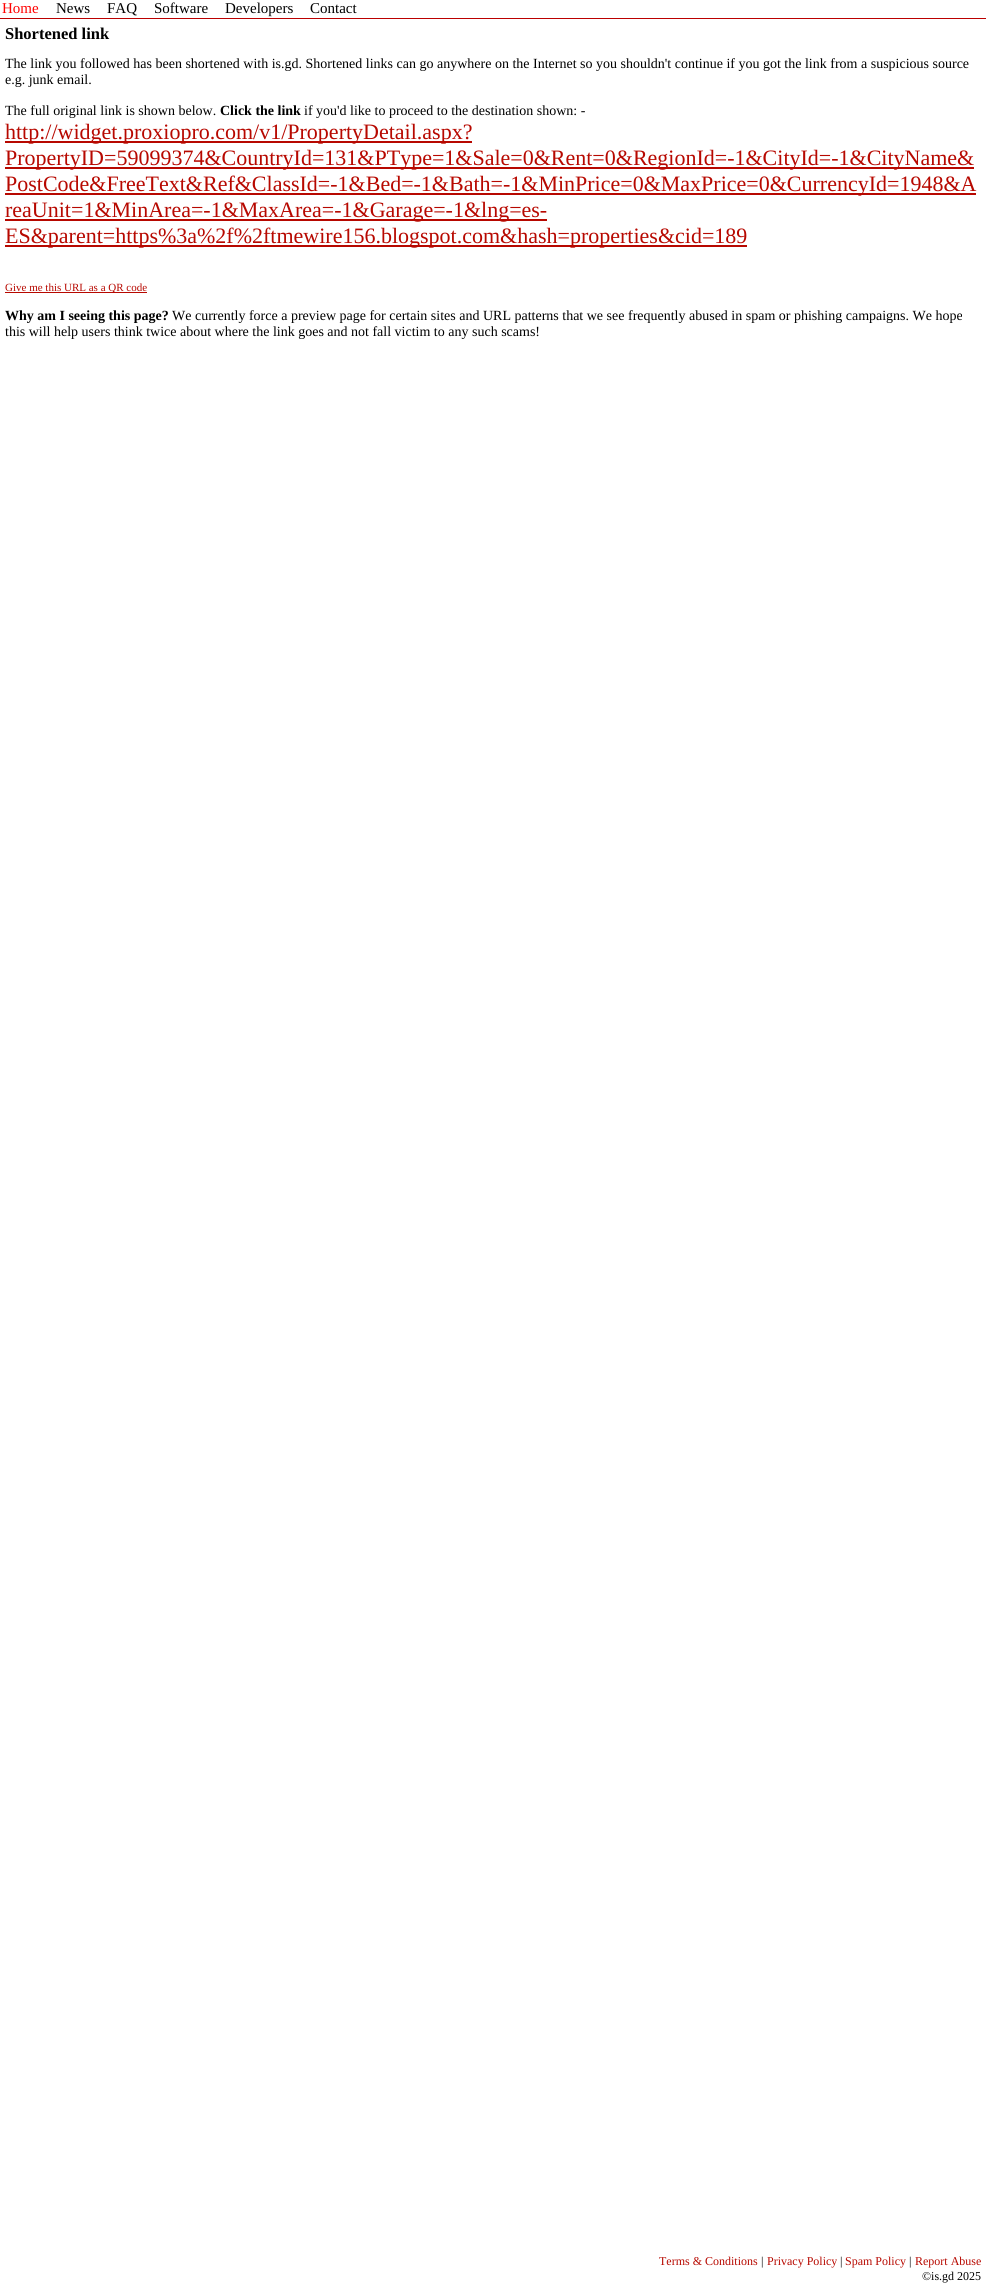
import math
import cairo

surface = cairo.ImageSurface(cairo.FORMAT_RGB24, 986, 2288)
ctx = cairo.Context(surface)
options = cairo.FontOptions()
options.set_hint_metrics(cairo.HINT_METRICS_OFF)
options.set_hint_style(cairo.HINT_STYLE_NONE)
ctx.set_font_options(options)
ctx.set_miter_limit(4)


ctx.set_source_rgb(1, 1, 1)
ctx.paint()
ctx.set_source_rgb(0.733, 0, 0)
ctx.rectangle(0, 18, 986, 1)
ctx.fill()
ctx.select_font_face("Liberation Serif")
ctx.set_font_size(15)
ctx.set_source_rgb(1, 0, 0)
ctx.move_to(2, 13)
ctx.show_text("Home")
ctx.set_source_rgb(0, 0, 0)
ctx.move_to(56, 13)
ctx.show_text("News")
ctx.move_to(107, 13)
ctx.show_text("FAQ")
ctx.move_to(154, 13)
ctx.show_text("Software")
ctx.move_to(225, 13)
ctx.show_text("Developers")
ctx.move_to(310, 13)
ctx.show_text("Contact")
ctx.select_font_face("Liberation Serif", cairo.FONT_SLANT_NORMAL, cairo.FONT_WEIGHT_BOLD)
ctx.set_font_size(16.5)
ctx.move_to(5, 39)
ctx.show_text("Shortened link")
ctx.select_font_face("Liberation Serif")
ctx.set_font_size(14)
ctx.move_to(5, 68)
ctx.show_text("The link you followed has been shortened with is.gd. Shortened links can go anywhere on the Internet so you shouldn't continue if you got the link from a suspicious source")
ctx.move_to(5, 84)
ctx.show_text("e.g. junk email.")
ctx.move_to(5, 115)
ctx.show_text("The full original link is shown below.")
ctx.select_font_face("Liberation Serif", cairo.FONT_SLANT_NORMAL, cairo.FONT_WEIGHT_BOLD)
ctx.move_to(220, 115)
ctx.show_text("Click the link")
ctx.select_font_face("Liberation Serif")
ctx.move_to(304, 115)
ctx.show_text("if you'd like to proceed to the destination shown: -")
ctx.set_source_rgb(0.718, 0.035, 0)
ctx.rectangle(5, 141, 467, 2)
ctx.fill()
ctx.set_font_size(22)
ctx.move_to(5, 139)
ctx.show_text("http://widget.proxiopro.com/v1/PropertyDetail.aspx?")
ctx.rectangle(5, 167, 969, 2)
ctx.fill()
ctx.move_to(5, 165)
ctx.show_text("PropertyID=59099374&CountryId=131&PType=1&Sale=0&Rent=0&RegionId=-1&CityId=-1&CityName&")
ctx.rectangle(5, 193, 971, 2)
ctx.fill()
ctx.move_to(5, 191)
ctx.show_text("PostCode&FreeText&Ref&ClassId=-1&Bed=-1&Bath=-1&MinPrice=0&MaxPrice=0&CurrencyId=1948&A")
ctx.rectangle(5, 219, 542, 2)
ctx.fill()
ctx.move_to(5, 217)
ctx.show_text("reaUnit=1&MinArea=-1&MaxArea=-1&Garage=-1&lng=es-")
ctx.rectangle(5, 245, 742, 2)
ctx.fill()
ctx.move_to(5, 243)
ctx.show_text("ES&parent=https%3a%2f%2ftmewire156.blogspot.com&hash=properties&cid=189")
ctx.rectangle(5, 292, 142, 1)
ctx.fill()
ctx.set_font_size(11)
ctx.move_to(5, 291)
ctx.show_text("Give me this URL as a QR code")
ctx.select_font_face("Liberation Serif", cairo.FONT_SLANT_NORMAL, cairo.FONT_WEIGHT_BOLD)
ctx.set_font_size(14)
ctx.set_source_rgb(0, 0, 0)
ctx.move_to(5, 320)
ctx.show_text("Why am I seeing this page?")
ctx.select_font_face("Liberation Serif")
ctx.move_to(172, 320)
ctx.show_text("We currently force a preview page for certain sites and URL patterns that we see frequently abused in spam or phishing campaigns. We hope")
ctx.move_to(5, 336)
ctx.show_text("this will help users think twice about where the link goes and not fall victim to any such scams!")
ctx.set_font_size(12)
ctx.set_source_rgb(0.718, 0.035, 0)
ctx.move_to(659, 2265)
ctx.show_text("Terms & Conditions")
ctx.set_source_rgb(0, 0, 0)
ctx.move_to(761, 2265)
ctx.show_text("|")
ctx.set_source_rgb(0.718, 0.035, 0)
ctx.move_to(767, 2265)
ctx.show_text("Privacy Policy")
ctx.set_source_rgb(0, 0, 0)
ctx.move_to(840, 2265)
ctx.show_text("|")
ctx.set_source_rgb(0.718, 0.035, 0)
ctx.move_to(845, 2265)
ctx.show_text("Spam Policy")
ctx.set_source_rgb(0, 0, 0)
ctx.move_to(909, 2265)
ctx.show_text("|")
ctx.set_source_rgb(0.718, 0.035, 0)
ctx.move_to(915, 2265)
ctx.show_text("Report Abuse")
ctx.set_source_rgb(0, 0, 0)
ctx.move_to(922, 2280)
ctx.show_text("©is.gd 2025")
surface.write_to_png("page.png")
